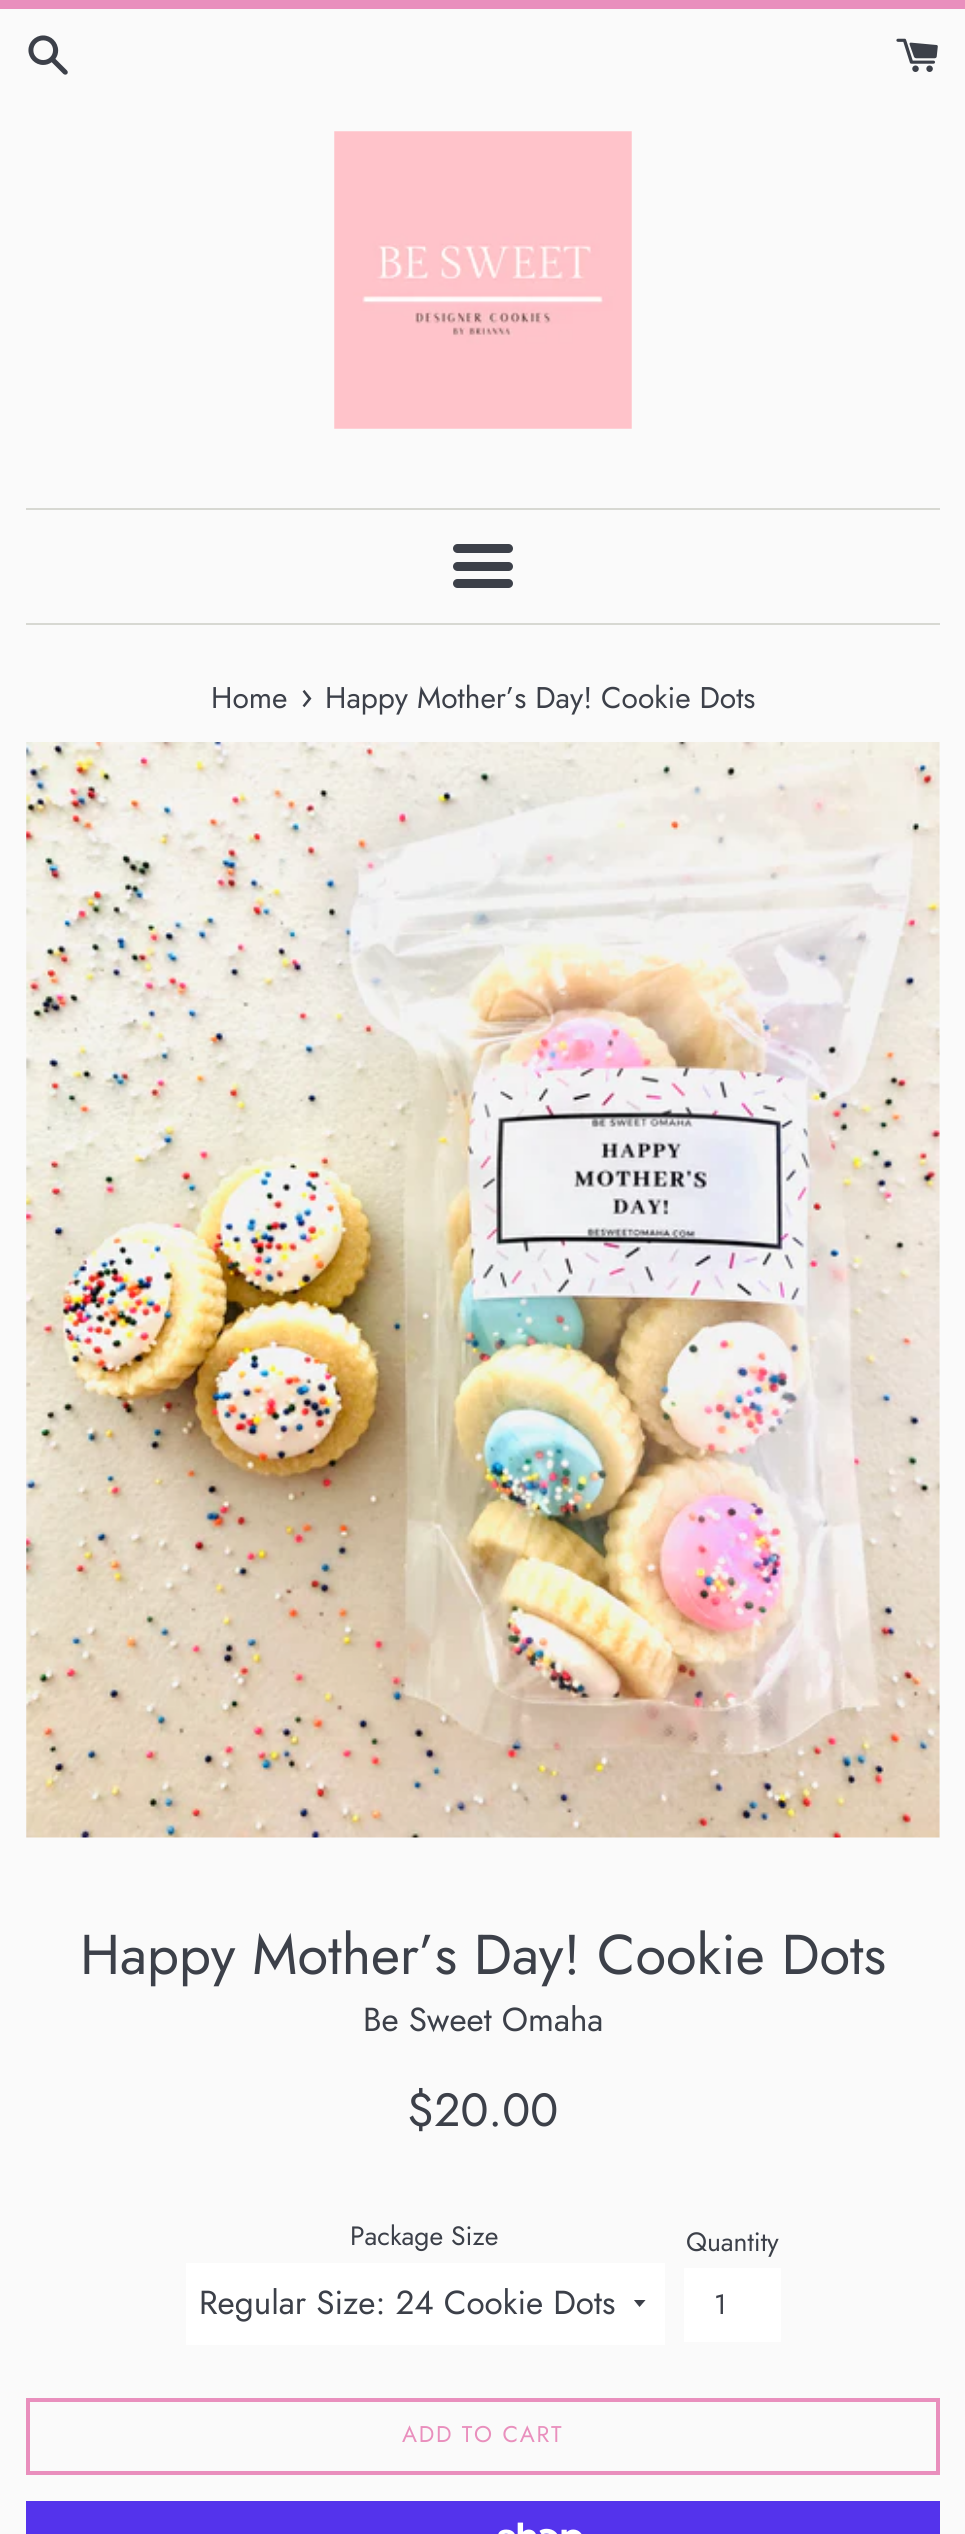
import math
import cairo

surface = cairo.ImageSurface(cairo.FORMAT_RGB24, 965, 2534)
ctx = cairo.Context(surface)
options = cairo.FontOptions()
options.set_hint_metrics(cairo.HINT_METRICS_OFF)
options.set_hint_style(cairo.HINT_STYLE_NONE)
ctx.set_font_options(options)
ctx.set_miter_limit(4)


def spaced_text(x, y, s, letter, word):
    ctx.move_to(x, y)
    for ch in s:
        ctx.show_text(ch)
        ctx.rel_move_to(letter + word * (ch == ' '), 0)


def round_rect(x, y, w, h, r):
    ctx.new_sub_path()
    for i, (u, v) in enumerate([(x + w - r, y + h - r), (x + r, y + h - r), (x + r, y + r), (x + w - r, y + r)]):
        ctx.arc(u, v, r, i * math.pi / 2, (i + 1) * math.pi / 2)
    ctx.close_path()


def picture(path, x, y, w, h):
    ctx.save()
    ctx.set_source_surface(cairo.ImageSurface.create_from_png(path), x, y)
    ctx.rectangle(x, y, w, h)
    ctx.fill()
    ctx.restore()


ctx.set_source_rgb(0.98, 0.98, 0.98)
ctx.paint()
ctx.set_source_rgb(0.914, 0.561, 0.741)
ctx.rectangle(0, 0, 965, 9)
ctx.fill()
picture("img1.png", 28, 35, 40, 40)
picture("img2.png", 896, 38, 42, 34)
picture("img3.png", 334, 131, 298, 298)
ctx.set_source_rgb(0.843, 0.847, 0.824)
ctx.rectangle(26, 508, 914, 2)
ctx.fill()
ctx.set_source_rgb(0.235, 0.251, 0.286)
round_rect(453, 544, 60, 9, 4.5)
ctx.fill()
round_rect(453, 562, 60, 9, 4.5)
ctx.fill()
round_rect(453, 579, 60, 9, 4.5)
ctx.fill()
ctx.set_source_rgb(0.843, 0.847, 0.824)
ctx.rectangle(26, 623, 914, 2)
ctx.fill()
ctx.select_font_face("Jost")
ctx.set_font_size(29.9)
ctx.set_source_rgb(0.235, 0.251, 0.286)
ctx.move_to(211, 708)
ctx.show_text("Home")
ctx.set_font_size(37)
ctx.move_to(300, 708)
ctx.show_text("›")
ctx.set_font_size(29.9)
ctx.move_to(325, 708)
ctx.show_text("Happy Mother’s Day! Cookie Dots")
picture("img4.png", 26, 742, 914, 1096)
ctx.set_font_size(56)
ctx.move_to(80, 1974)
ctx.show_text("Happy Mother’s Day! Cookie Dots")
ctx.set_font_size(33.25)
ctx.move_to(363, 2031)
ctx.show_text("Be Sweet Omaha")
ctx.set_font_size(46.5)
ctx.move_to(407, 2126)
ctx.show_text("$20.00")
ctx.set_font_size(26.5)
ctx.move_to(350, 2245)
ctx.show_text("Package Size")
ctx.set_source_rgb(1, 1, 1)
ctx.rectangle(186, 2263, 479, 82)
ctx.fill()
ctx.save()
ctx.rectangle(634, 2300, 14, 8)
ctx.clip()
ctx.set_source_rgb(0.235, 0.251, 0.286)
ctx.new_path()
ctx.move_to(633.5, 2299.5)
ctx.line_to(639.5, 2307)
ctx.line_to(646, 2299.5)
ctx.close_path()
ctx.fill()
ctx.restore()
ctx.set_font_size(33.25)
ctx.set_source_rgb(0.235, 0.251, 0.286)
ctx.move_to(199, 2314)
ctx.show_text("Regular Size: 24 Cookie Dots")
ctx.set_font_size(26.5)
ctx.move_to(686, 2251)
ctx.show_text("Quantity")
ctx.set_source_rgb(1, 1, 1)
ctx.rectangle(684, 2268, 97, 74)
ctx.fill()
ctx.set_font_size(28)
ctx.set_source_rgb(0.235, 0.251, 0.286)
ctx.move_to(714, 2314)
ctx.show_text("1")
ctx.rectangle(28, 2400, 910, 73)
ctx.set_source_rgb(0.914, 0.561, 0.741)
ctx.set_line_width(4)
ctx.stroke()
ctx.set_font_size(22.75)
spaced_text(402, 2442, "ADD TO CART", 1.75, 0)
ctx.set_source_rgb(0.329, 0.2, 0.922)
ctx.rectangle(26, 2501, 914, 33)
ctx.fill()
picture("img5.png", 498, 2522, 84, 12)
surface.write_to_png("page.png")
